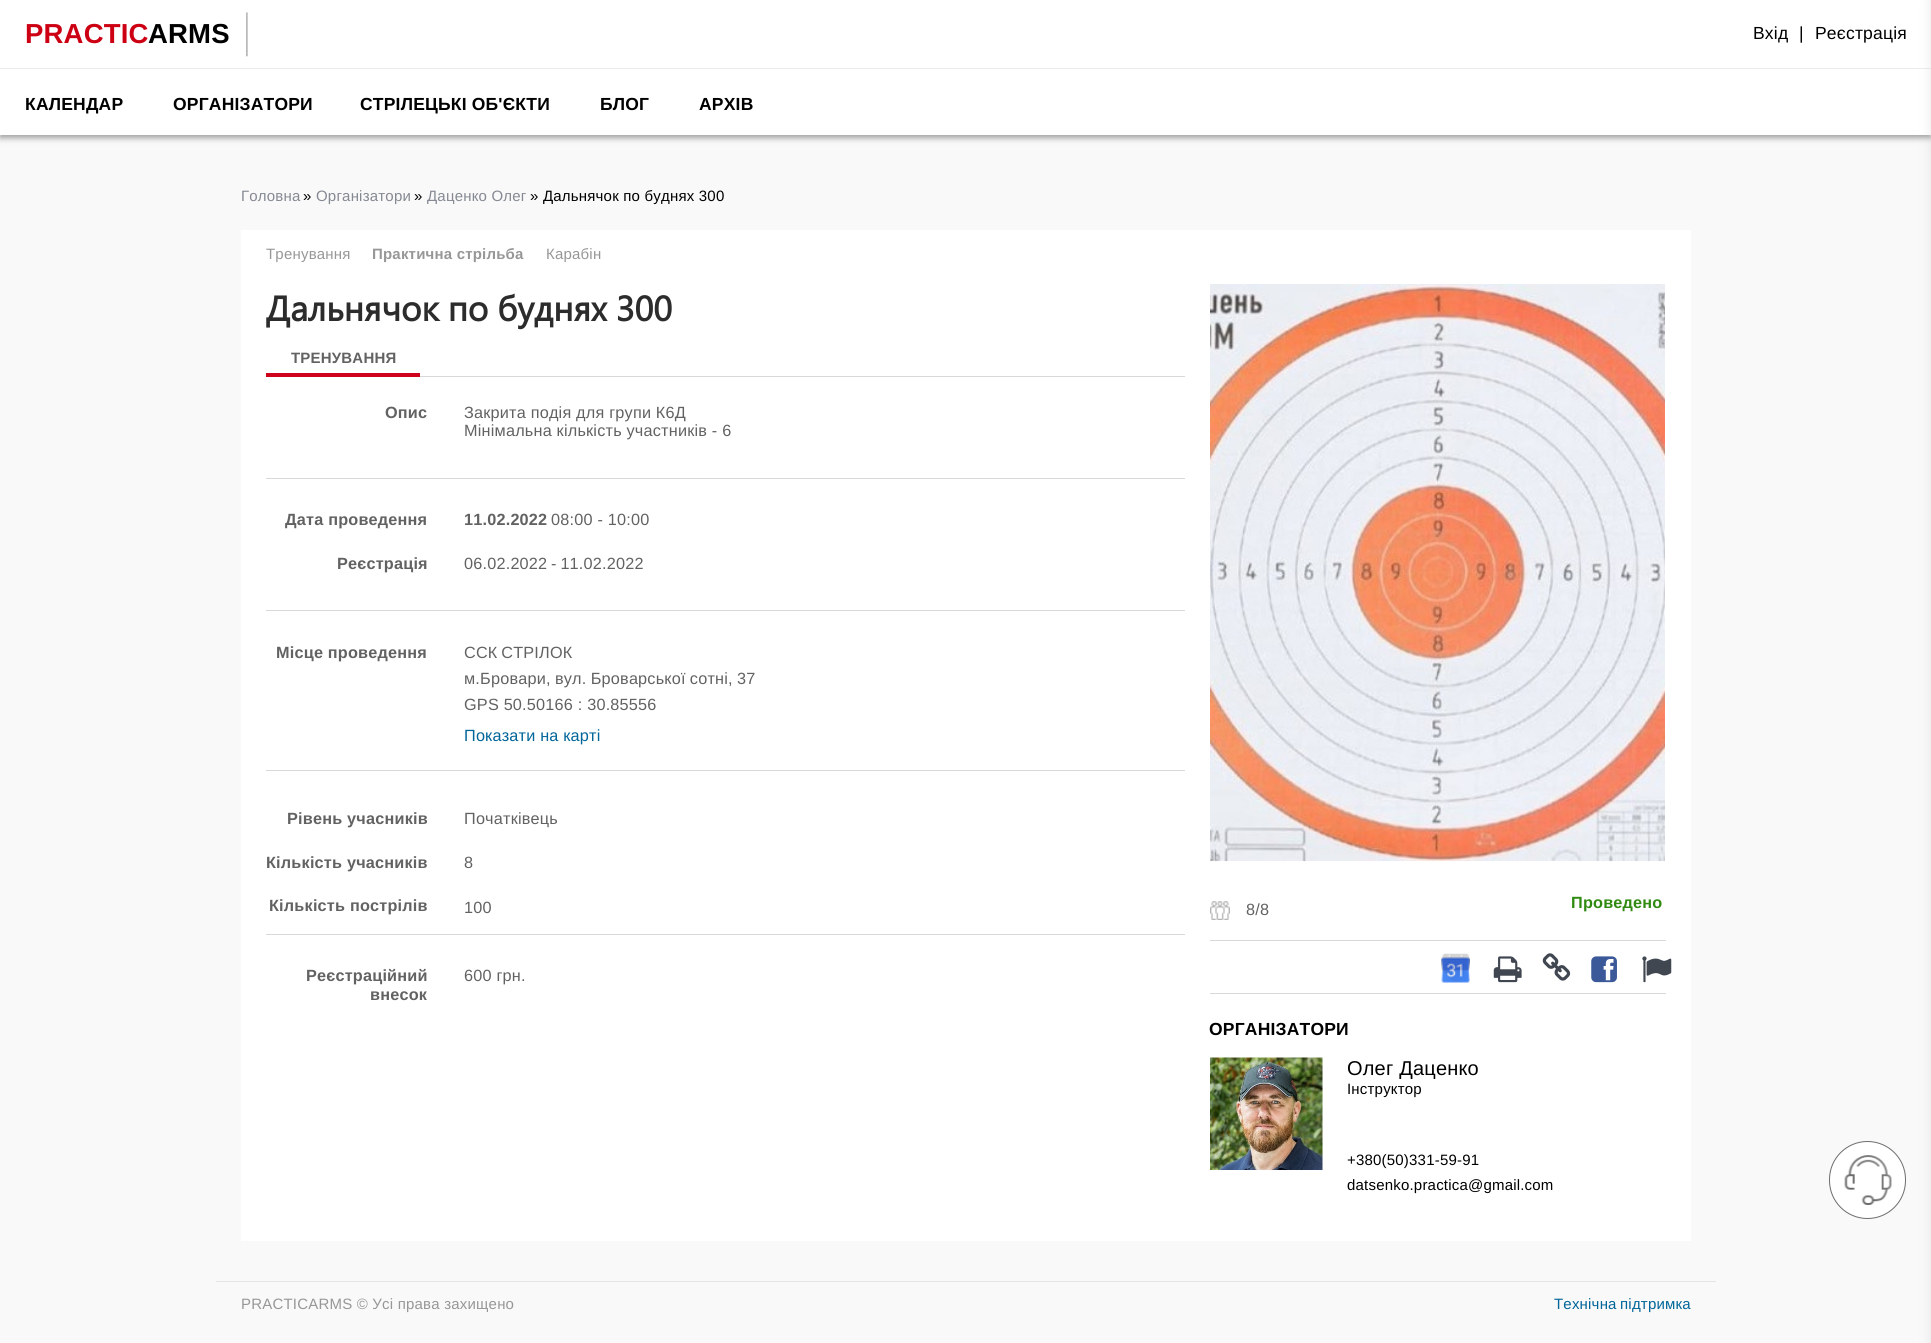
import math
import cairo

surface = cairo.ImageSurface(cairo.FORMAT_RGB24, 1931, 1343)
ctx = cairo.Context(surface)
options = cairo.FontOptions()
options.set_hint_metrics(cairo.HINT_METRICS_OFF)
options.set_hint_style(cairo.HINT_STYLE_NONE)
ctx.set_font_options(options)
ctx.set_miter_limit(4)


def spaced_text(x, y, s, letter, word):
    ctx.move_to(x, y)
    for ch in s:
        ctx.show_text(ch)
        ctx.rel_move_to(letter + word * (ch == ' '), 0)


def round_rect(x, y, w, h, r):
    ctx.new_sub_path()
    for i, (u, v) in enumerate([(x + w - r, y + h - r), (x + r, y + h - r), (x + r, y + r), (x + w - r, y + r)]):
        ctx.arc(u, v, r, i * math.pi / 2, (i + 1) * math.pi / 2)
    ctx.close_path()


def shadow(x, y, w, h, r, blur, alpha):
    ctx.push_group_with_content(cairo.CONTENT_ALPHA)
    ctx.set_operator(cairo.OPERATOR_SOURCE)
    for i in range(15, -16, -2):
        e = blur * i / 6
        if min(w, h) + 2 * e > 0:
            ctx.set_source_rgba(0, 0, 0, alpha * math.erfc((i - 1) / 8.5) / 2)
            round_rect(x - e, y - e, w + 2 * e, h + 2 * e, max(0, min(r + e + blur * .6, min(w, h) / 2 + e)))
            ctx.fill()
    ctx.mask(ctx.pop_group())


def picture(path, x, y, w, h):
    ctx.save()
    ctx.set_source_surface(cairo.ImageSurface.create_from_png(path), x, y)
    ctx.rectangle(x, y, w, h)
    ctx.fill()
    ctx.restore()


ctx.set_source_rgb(0.976, 0.976, 0.976)
ctx.paint()
ctx.set_source_rgb(0.384, 0.384, 0.384)
shadow(0, 69, 1931, 69, 0, 3, 0.6)
ctx.set_source_rgb(1, 1, 1)
ctx.rectangle(0, 0, 1931, 68)
ctx.fill()
ctx.set_source_rgb(0.922, 0.922, 0.922)
ctx.rectangle(0, 68, 1931, 1)
ctx.fill()
picture("img1.png", 246, 12, 2, 45)
ctx.select_font_face("Liberation Sans", cairo.FONT_SLANT_NORMAL, cairo.FONT_WEIGHT_BOLD)
ctx.set_font_size(27.5)
ctx.set_source_rgb(0.804, 0, 0.078)
spaced_text(25, 43, "PRACTIC", 0.2, 0)
ctx.set_source_rgb(0, 0, 0)
spaced_text(148, 43, "ARMS", 0.2, 0)
ctx.select_font_face("Liberation Sans")
ctx.set_font_size(17.5)
spaced_text(1753, 39, "Вхід", 0.2, 0)
spaced_text(1799, 39, "|", 0.2, 0)
spaced_text(1815, 39, "Реєстрація", 0.2, 0)
ctx.set_source_rgb(1, 1, 1)
ctx.rectangle(0, 69, 1931, 66)
ctx.fill()
ctx.select_font_face("Liberation Sans", cairo.FONT_SLANT_NORMAL, cairo.FONT_WEIGHT_BOLD)
ctx.set_source_rgb(0, 0, 0)
spaced_text(25, 110, "КАЛЕНДАР", 0.2, 0)
spaced_text(173, 110, "ОРГАНІЗАТОРИ", 0.2, 0)
spaced_text(360, 110, "СТРІЛЕЦЬКІ ОБ'ЄКТИ", 0.2, 0)
spaced_text(600, 110, "БЛОГ", 0.2, 0)
spaced_text(699, 110, "АРХІВ", 0.2, 0)
ctx.select_font_face("Liberation Sans")
ctx.set_font_size(15)
ctx.set_source_rgb(0.522, 0.537, 0.573)
spaced_text(241, 201, "Головна", 0.2, 0)
ctx.set_source_rgb(0, 0, 0)
spaced_text(303, 201, "»", 0.2, 0)
ctx.set_source_rgb(0.522, 0.537, 0.573)
spaced_text(316, 201, "Організатори", 0.2, 0)
ctx.set_source_rgb(0, 0, 0)
spaced_text(414, 201, "»", 0.2, 0)
ctx.set_source_rgb(0.522, 0.537, 0.573)
spaced_text(427, 201, "Даценко Олег", 0.2, 0)
ctx.set_source_rgb(0, 0, 0)
spaced_text(530, 201, "» Дальнячок по буднях 300", 0.2, 0)
ctx.set_source_rgb(1, 1, 1)
ctx.rectangle(241, 230, 1450, 1011)
ctx.fill()
ctx.set_source_rgb(0.592, 0.592, 0.592)
spaced_text(266, 259, "Тренування", 0.2, 0)
ctx.select_font_face("Liberation Sans", cairo.FONT_SLANT_NORMAL, cairo.FONT_WEIGHT_BOLD)
spaced_text(372, 259, "Практична стрільба", 0.2, 0)
ctx.select_font_face("Liberation Sans")
spaced_text(546, 259, "Карабін", 0.2, 0)
ctx.select_font_face("Segoe UI", cairo.FONT_SLANT_NORMAL, cairo.FONT_WEIGHT_BOLD)
ctx.set_font_size(35)
ctx.set_source_rgb(0.173, 0.173, 0.173)
spaced_text(266, 321, "Дальнячок по буднях 300", -0.1, -0.5)
ctx.set_source_rgb(0.847, 0.847, 0.847)
ctx.rectangle(420, 376, 765, 1)
ctx.fill()
ctx.set_source_rgb(0.812, 0.008, 0.106)
ctx.rectangle(266, 373, 154, 4)
ctx.fill()
ctx.select_font_face("Liberation Sans", cairo.FONT_SLANT_NORMAL, cairo.FONT_WEIGHT_BOLD)
ctx.set_font_size(15)
ctx.set_source_rgb(0.384, 0.384, 0.384)
spaced_text(291, 363, "ТРЕНУВАННЯ", 0.2, 0)
ctx.set_font_size(16.25)
spaced_text(385, 418, "Опис", 0.2, 0)
ctx.select_font_face("Liberation Sans")
spaced_text(464, 418, "Закрита подія для групи К6Д", 0.2, 0)
spaced_text(464, 436, "Мінімальна кількість участників - 6", 0.2, 0)
ctx.set_source_rgb(0.847, 0.847, 0.847)
ctx.rectangle(266, 478, 919, 1)
ctx.fill()
ctx.select_font_face("Liberation Sans", cairo.FONT_SLANT_NORMAL, cairo.FONT_WEIGHT_BOLD)
ctx.set_source_rgb(0.384, 0.384, 0.384)
spaced_text(285, 525, "Дата проведення", 0.2, 0)
spaced_text(464, 525, "11.02.2022", 0.2, 0)
ctx.select_font_face("Liberation Sans")
spaced_text(551, 525, "08:00 - 10:00", 0.2, 0)
ctx.select_font_face("Liberation Sans", cairo.FONT_SLANT_NORMAL, cairo.FONT_WEIGHT_BOLD)
spaced_text(337, 569, "Реєстрація", 0.2, 0)
ctx.select_font_face("Liberation Sans")
spaced_text(464, 569, "06.02.2022 - 11.02.2022", 0.2, -1)
ctx.set_source_rgb(0.847, 0.847, 0.847)
ctx.rectangle(266, 610, 919, 1)
ctx.fill()
ctx.rectangle(266, 770, 919, 1)
ctx.fill()
ctx.select_font_face("Liberation Sans", cairo.FONT_SLANT_NORMAL, cairo.FONT_WEIGHT_BOLD)
ctx.set_source_rgb(0.384, 0.384, 0.384)
spaced_text(276, 658, "Місце проведення", 0.2, 0)
ctx.select_font_face("Liberation Sans")
spaced_text(464, 658, "ССК СТРІЛОК", 0.2, -1)
spaced_text(464, 684, "м.Бровари, вул. Броварської сотні, 37", 0.2, -0.5)
spaced_text(464, 710, "GPS 50.50166 : 30.85556", 0.2, 0)
ctx.set_source_rgb(0, 0.396, 0.6)
spaced_text(464, 741, "Показати на карті", 0.2, 0)
ctx.select_font_face("Liberation Sans", cairo.FONT_SLANT_NORMAL, cairo.FONT_WEIGHT_BOLD)
ctx.set_source_rgb(0.384, 0.384, 0.384)
spaced_text(287, 824, "Рівень учасників", 0.2, 0)
ctx.select_font_face("Liberation Sans")
spaced_text(464, 824, "Початківець", 0.2, 0)
ctx.select_font_face("Liberation Sans", cairo.FONT_SLANT_NORMAL, cairo.FONT_WEIGHT_BOLD)
spaced_text(266, 868, "Кількість учасників", 0.2, 0)
ctx.select_font_face("Liberation Sans")
spaced_text(464, 868, "8", 0.2, 0)
ctx.select_font_face("Liberation Sans", cairo.FONT_SLANT_NORMAL, cairo.FONT_WEIGHT_BOLD)
spaced_text(269, 911, "Кількість пострілів", 0.2, 0)
ctx.select_font_face("Liberation Sans")
spaced_text(464, 913, "100", 0.2, 0)
ctx.set_source_rgb(0.847, 0.847, 0.847)
ctx.rectangle(266, 934, 919, 1)
ctx.fill()
ctx.select_font_face("Liberation Sans", cairo.FONT_SLANT_NORMAL, cairo.FONT_WEIGHT_BOLD)
ctx.set_source_rgb(0.384, 0.384, 0.384)
spaced_text(306, 981, "Реєстраційний", 0.2, 0)
spaced_text(370, 1000, "внесок", 0.2, 0)
ctx.select_font_face("Liberation Sans")
spaced_text(464, 981, "600 грн.", 0.2, 0)
picture("img2.png", 1210, 284, 455, 578)
picture("img3.png", 1210, 901, 20, 19)
spaced_text(1246, 915, "8/8", 0.2, 0)
ctx.select_font_face("Liberation Sans", cairo.FONT_SLANT_NORMAL, cairo.FONT_WEIGHT_BOLD)
ctx.set_source_rgb(0.188, 0.541, 0.067)
spaced_text(1571, 908, "Проведено", 0.2, 0)
ctx.set_source_rgb(0.847, 0.847, 0.847)
ctx.rectangle(1210, 940, 456, 1)
ctx.fill()
ctx.rectangle(1210, 993, 456, 1)
ctx.fill()
picture("img4.png", 1441, 953, 29, 30)
picture("img5.png", 1493, 956, 29, 27)
picture("img6.png", 1542, 953, 29, 28)
picture("img7.png", 1591, 956, 26, 27)
picture("img8.png", 1642, 956, 30, 27)
ctx.set_font_size(17.5)
ctx.set_source_rgb(0, 0, 0)
spaced_text(1209, 1035, "ОРГАНІЗАТОРИ", 0.2, 0)
picture("img9.png", 1210, 1057, 113, 113)
ctx.select_font_face("Liberation Sans")
ctx.set_font_size(20)
spaced_text(1347, 1075, "Олег Даценко", 0.2, 0)
ctx.set_font_size(15)
spaced_text(1347, 1094, "Інструктор", 0.2, 0)
spaced_text(1347, 1165, "+380(50)331-59-91", 0.2, 0)
spaced_text(1347, 1190, "datsenko.practica@gmail.com", 0.2, 0)
ctx.set_source_rgb(0.749, 0.749, 0.749)
shadow(1931, 0, 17, 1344, 0, 5.5, 0.36)
ctx.set_source_rgb(1, 1, 1)
round_rect(1829.5, 1141.5, 76, 77, 38)
ctx.fill_preserve()
ctx.set_source_rgb(0.427, 0.427, 0.427)
ctx.set_line_width(1)
ctx.stroke()
picture("img10.png", 1844, 1155, 48, 50)
ctx.set_source_rgb(0.898, 0.898, 0.898)
ctx.rectangle(216, 1281, 1500, 1)
ctx.fill()
ctx.set_source_rgb(0.592, 0.592, 0.592)
spaced_text(241, 1309, "PRACTICARMS © Уcі права захищено", 0.2, 0)
ctx.set_source_rgb(0, 0.396, 0.6)
spaced_text(1554, 1309, "Технічна підтримка", 0.2, -1)
surface.write_to_png("page.png")
